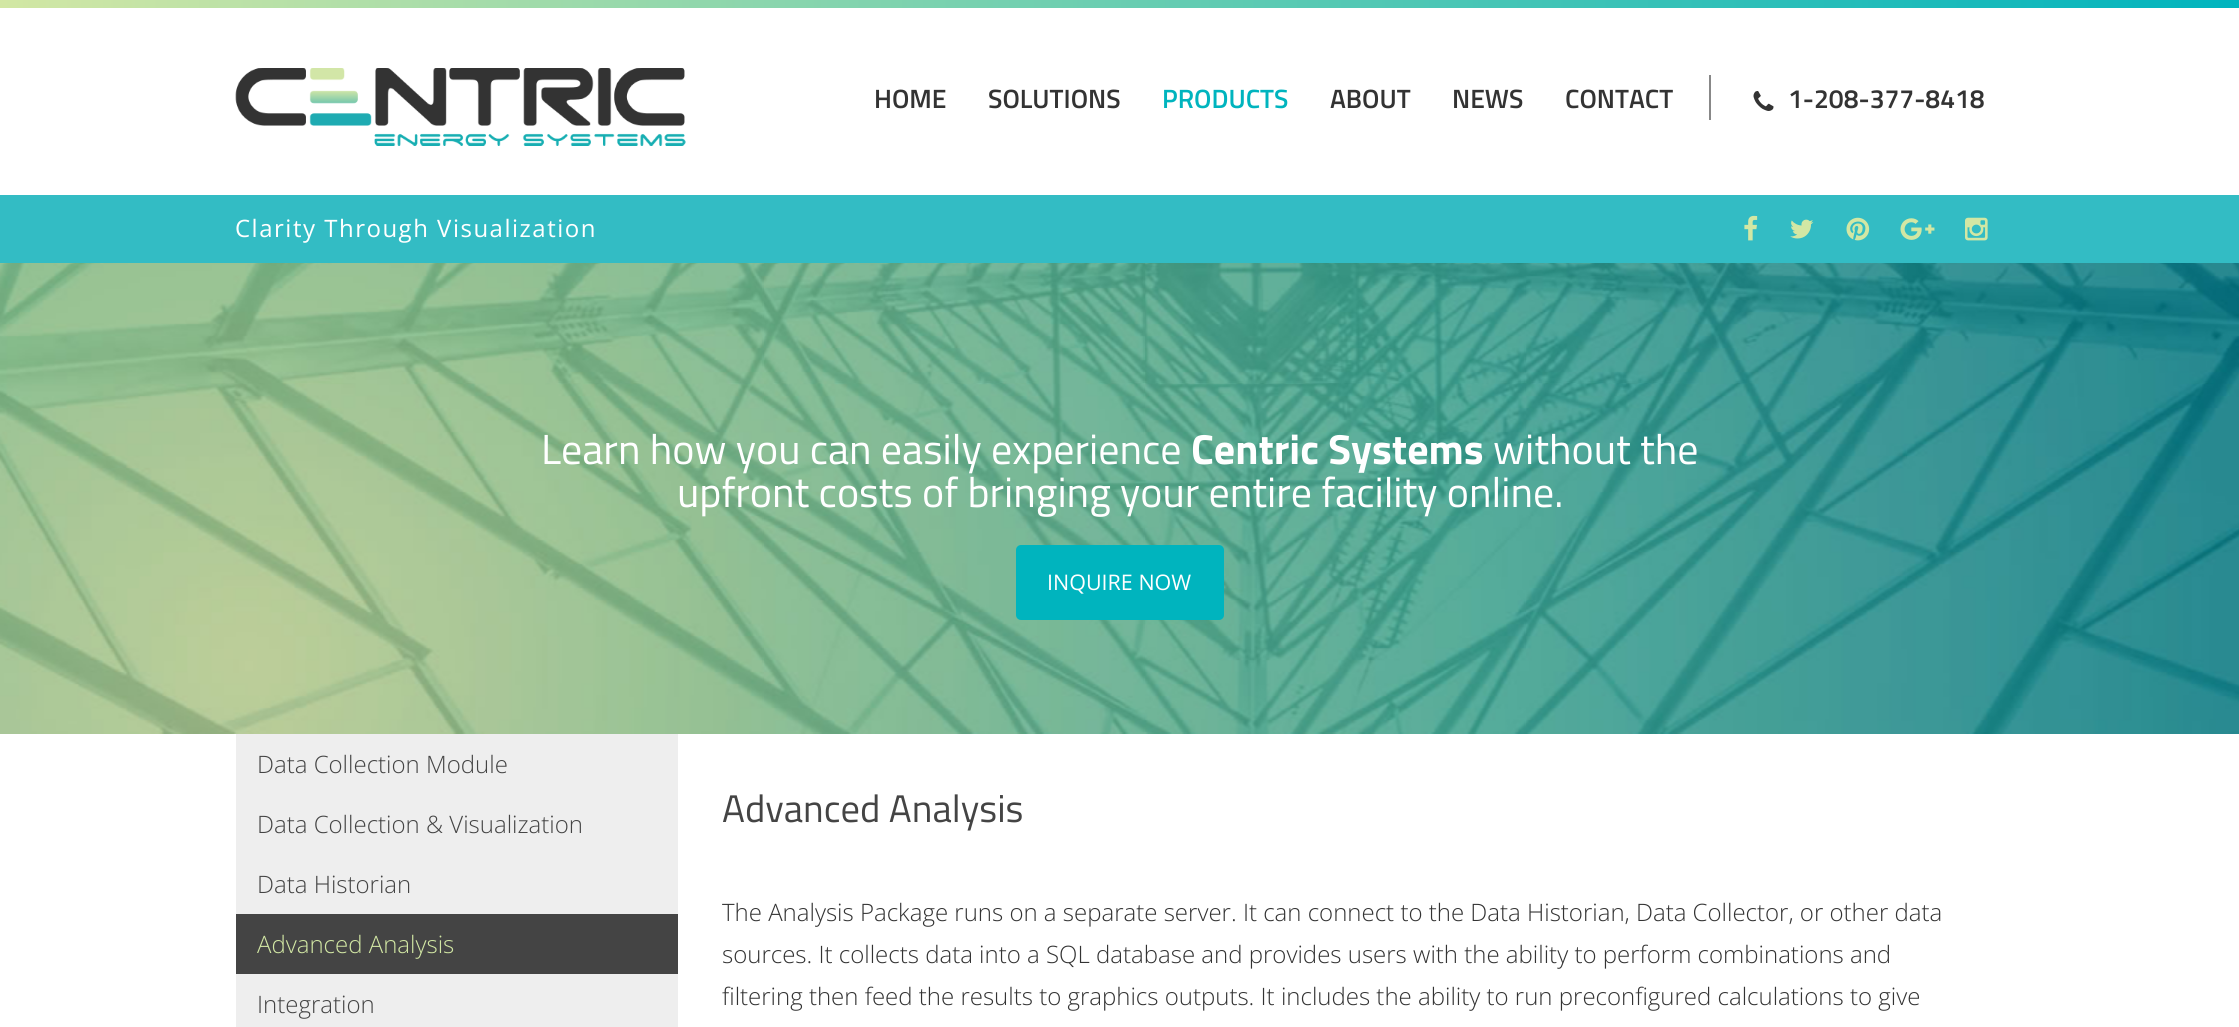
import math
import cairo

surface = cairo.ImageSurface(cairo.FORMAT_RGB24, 2239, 1027)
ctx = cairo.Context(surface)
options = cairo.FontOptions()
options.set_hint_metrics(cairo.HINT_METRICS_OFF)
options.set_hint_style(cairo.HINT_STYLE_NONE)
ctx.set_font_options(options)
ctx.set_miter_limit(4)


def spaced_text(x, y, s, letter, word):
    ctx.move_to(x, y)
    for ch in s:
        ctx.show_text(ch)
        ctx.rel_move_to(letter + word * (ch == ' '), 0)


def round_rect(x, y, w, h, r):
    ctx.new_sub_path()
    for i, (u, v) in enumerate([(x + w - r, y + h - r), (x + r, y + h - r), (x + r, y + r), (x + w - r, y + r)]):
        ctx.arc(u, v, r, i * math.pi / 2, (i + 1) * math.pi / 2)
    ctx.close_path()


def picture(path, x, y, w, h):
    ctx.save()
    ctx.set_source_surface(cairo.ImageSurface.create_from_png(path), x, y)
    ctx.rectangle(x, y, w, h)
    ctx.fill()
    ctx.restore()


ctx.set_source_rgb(1, 1, 1)
ctx.paint()
gradient = cairo.LinearGradient(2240, 3.8, 0, 3.7)
gradient.add_color_stop_rgba(0, 0, 0.706, 0.745, 1)
gradient.add_color_stop_rgba(1, 0.824, 0.906, 0.643, 1)
ctx.set_source(gradient)
ctx.rectangle(0, 0, 2239, 8)
ctx.fill()
picture("img1.png", 235, 68, 451, 78)
ctx.select_font_face("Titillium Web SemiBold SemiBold")
ctx.set_font_size(26.5)
ctx.set_source_rgb(0.2, 0.2, 0.2)
ctx.move_to(874, 108)
ctx.show_text("HOME")
ctx.move_to(988, 108)
ctx.show_text("SOLUTIONS")
ctx.set_source_rgb(0, 0.706, 0.745)
ctx.move_to(1162, 108)
ctx.show_text("PRODUCTS")
ctx.set_source_rgb(0.2, 0.2, 0.2)
ctx.move_to(1330, 108)
ctx.show_text("ABOUT")
ctx.move_to(1452, 108)
ctx.show_text("NEWS")
ctx.move_to(1565, 108)
ctx.show_text("CONTACT")
ctx.set_source_rgb(0.533, 0.533, 0.533)
ctx.rectangle(1709, 75, 2, 45)
ctx.fill()
picture("img2.png", 1753, 91, 21, 20)
ctx.set_source_rgb(0.2, 0.2, 0.2)
ctx.move_to(1788, 108)
ctx.show_text("1-208-377-8418")
ctx.set_source_rgb(0.2, 0.737, 0.769)
ctx.rectangle(0, 195, 2239, 68)
ctx.fill()
ctx.select_font_face("Open Sans")
ctx.set_font_size(24)
ctx.set_source_rgb(1, 1, 1)
spaced_text(235, 237, "Clarity Through Visualization", 1.5, 0)
picture("img3.png", 1744, 215, 14, 26)
picture("img4.png", 1790, 219, 24, 20)
picture("img5.png", 1846, 217, 24, 24)
picture("img6.png", 1900, 218, 35, 22)
picture("img7.png", 1965, 217, 23, 24)
picture("img8.png", 0, 263, 2239, 471)
ctx.select_font_face("Titillium Web")
ctx.set_font_size(42)
ctx.move_to(541, 464)
ctx.show_text("Learn how you can easily experience")
ctx.select_font_face("Titillium Web", cairo.FONT_SLANT_NORMAL, cairo.FONT_WEIGHT_BOLD)
ctx.move_to(1191, 464)
ctx.show_text("Centric Systems")
ctx.select_font_face("Titillium Web")
ctx.move_to(1493, 464)
ctx.show_text("without the")
ctx.move_to(677, 507)
ctx.show_text("upfront costs of bringing your entire facility online.")
ctx.set_source_rgb(0, 0.706, 0.745)
round_rect(1016, 545, 208, 75, 5)
ctx.fill()
ctx.select_font_face("Open Sans")
ctx.set_font_size(21.5)
ctx.set_source_rgb(1, 1, 1)
ctx.move_to(1047, 590)
ctx.show_text("INQUIRE NOW")
ctx.set_source_rgb(0.933, 0.933, 0.933)
ctx.rectangle(236, 734, 442, 180)
ctx.fill()
ctx.select_font_face("Open Sans Light")
ctx.set_font_size(24)
ctx.set_source_rgb(0.267, 0.267, 0.267)
ctx.move_to(257, 773)
ctx.show_text("Data Collection Module")
ctx.move_to(257, 833)
ctx.show_text("Data Collection & Visualization")
ctx.move_to(257, 893)
ctx.show_text("Data Historian")
ctx.rectangle(236, 914, 442, 60)
ctx.fill()
ctx.set_source_rgb(0.824, 0.906, 0.643)
ctx.move_to(257, 953)
ctx.show_text("Advanced Analysis")
ctx.set_source_rgb(0.933, 0.933, 0.933)
ctx.rectangle(236, 974, 442, 53)
ctx.fill()
ctx.set_source_rgb(0.267, 0.267, 0.267)
ctx.move_to(257, 1013)
ctx.show_text("Integration")
ctx.select_font_face("Titillium Web")
ctx.set_font_size(38.5)
ctx.move_to(722, 822)
ctx.show_text("Advanced Analysis")
ctx.select_font_face("Open Sans Light")
ctx.set_font_size(24)
ctx.set_source_rgb(0.2, 0.2, 0.2)
ctx.move_to(722, 921)
ctx.show_text("The Analysis Package runs on a separate server. It can connect to the Data Historian, Data Collector, or other data")
ctx.move_to(722, 963)
ctx.show_text("sources. It collects data into a SQL database and provides users with the ability to perform combinations and")
ctx.move_to(722, 1005)
ctx.show_text("filtering then feed the results to graphics outputs. It includes the ability to run preconfigured calculations to give")
surface.write_to_png("page.png")
